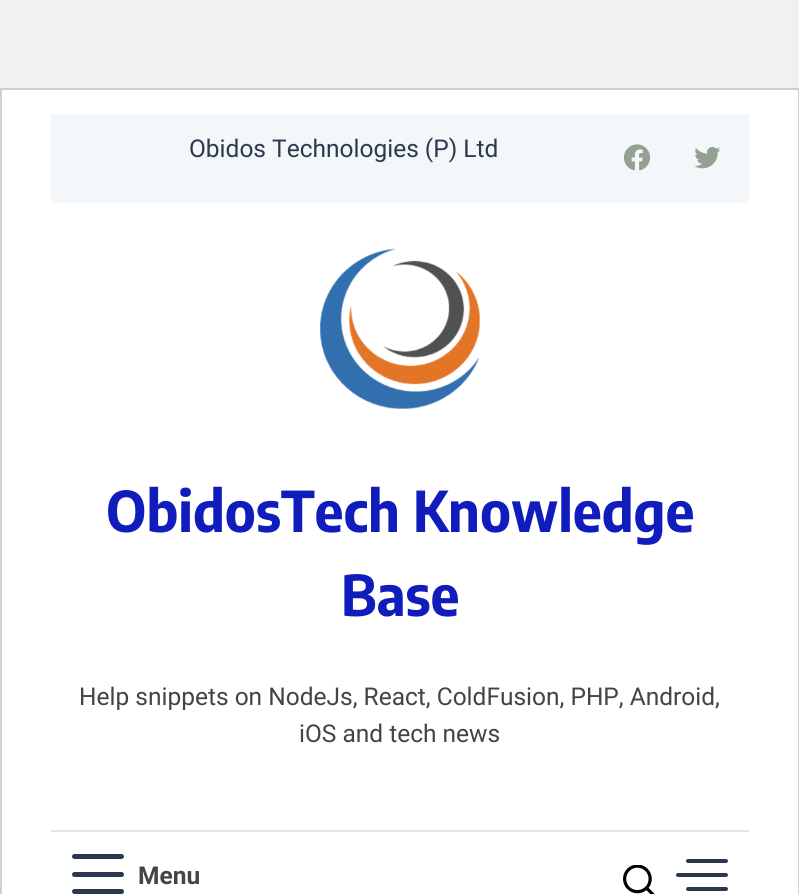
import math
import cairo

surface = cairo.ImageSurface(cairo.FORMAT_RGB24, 799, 894)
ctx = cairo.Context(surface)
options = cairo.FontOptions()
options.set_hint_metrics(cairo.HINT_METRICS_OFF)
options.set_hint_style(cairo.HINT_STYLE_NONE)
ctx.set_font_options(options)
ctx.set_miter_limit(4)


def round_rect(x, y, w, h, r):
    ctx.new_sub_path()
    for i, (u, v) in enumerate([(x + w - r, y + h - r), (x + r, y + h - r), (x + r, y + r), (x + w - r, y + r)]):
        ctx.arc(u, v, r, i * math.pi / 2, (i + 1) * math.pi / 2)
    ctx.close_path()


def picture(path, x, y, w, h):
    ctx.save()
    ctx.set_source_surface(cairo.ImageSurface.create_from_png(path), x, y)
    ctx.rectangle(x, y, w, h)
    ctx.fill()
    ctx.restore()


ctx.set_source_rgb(0.945, 0.945, 0.945)
ctx.paint()
ctx.set_source_rgb(1, 1, 1)
ctx.rectangle(1, 89, 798, 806)
ctx.fill_preserve()
ctx.set_source_rgb(0.8, 0.816, 0.831)
ctx.stroke()
ctx.set_source_rgb(0.957, 0.965, 0.973)
ctx.rectangle(51, 114, 698, 89)
ctx.fill()
ctx.select_font_face("Roboto")
ctx.set_font_size(24.5)
ctx.set_source_rgb(0.169, 0.224, 0.306)
ctx.move_to(189, 157)
ctx.show_text("Obidos Technologies (P) Ltd")
picture("img1.png", 623, 144, 28, 27)
picture("img2.png", 694, 147, 27, 22)
picture("img3.png", 320, 248, 160, 161)
ctx.select_font_face("Encode Sans Semi Condensed", cairo.FONT_SLANT_NORMAL, cairo.FONT_WEIGHT_BOLD)
ctx.set_font_size(56)
ctx.set_source_rgb(0.063, 0.11, 0.737)
ctx.move_to(106, 532)
ctx.show_text("ObidosTech Knowledge")
ctx.move_to(341, 616)
ctx.show_text("Base")
ctx.select_font_face("Roboto")
ctx.set_font_size(24.5)
ctx.set_source_rgb(0.267, 0.267, 0.267)
ctx.move_to(79, 705)
ctx.show_text("Help snippets on NodeJs, React, ColdFusion, PHP, Android,")
ctx.move_to(299, 742)
ctx.show_text("iOS and tech news")
ctx.set_source_rgb(0.894, 0.894, 0.894)
ctx.rectangle(51, 830, 698, 2)
ctx.fill()
ctx.set_source_rgb(0.169, 0.224, 0.306)
round_rect(72, 854, 52, 5, 2.5)
ctx.fill()
round_rect(72, 872, 52, 5, 2.5)
ctx.fill()
round_rect(72, 889, 52, 5, 2.5)
ctx.fill()
ctx.select_font_face("Roboto", cairo.FONT_SLANT_NORMAL, cairo.FONT_WEIGHT_BOLD)
ctx.set_source_rgb(0.267, 0.267, 0.267)
ctx.move_to(138, 884)
ctx.show_text("Menu")
picture("img4.png", 623, 865, 32, 29)
ctx.set_source_rgb(0.169, 0.224, 0.306)
round_rect(676, 873, 52, 4, 2)
ctx.fill()
round_rect(686, 859, 42, 4, 2)
ctx.fill()
round_rect(686, 887, 42, 4, 2)
ctx.fill()
surface.write_to_png("page.png")
